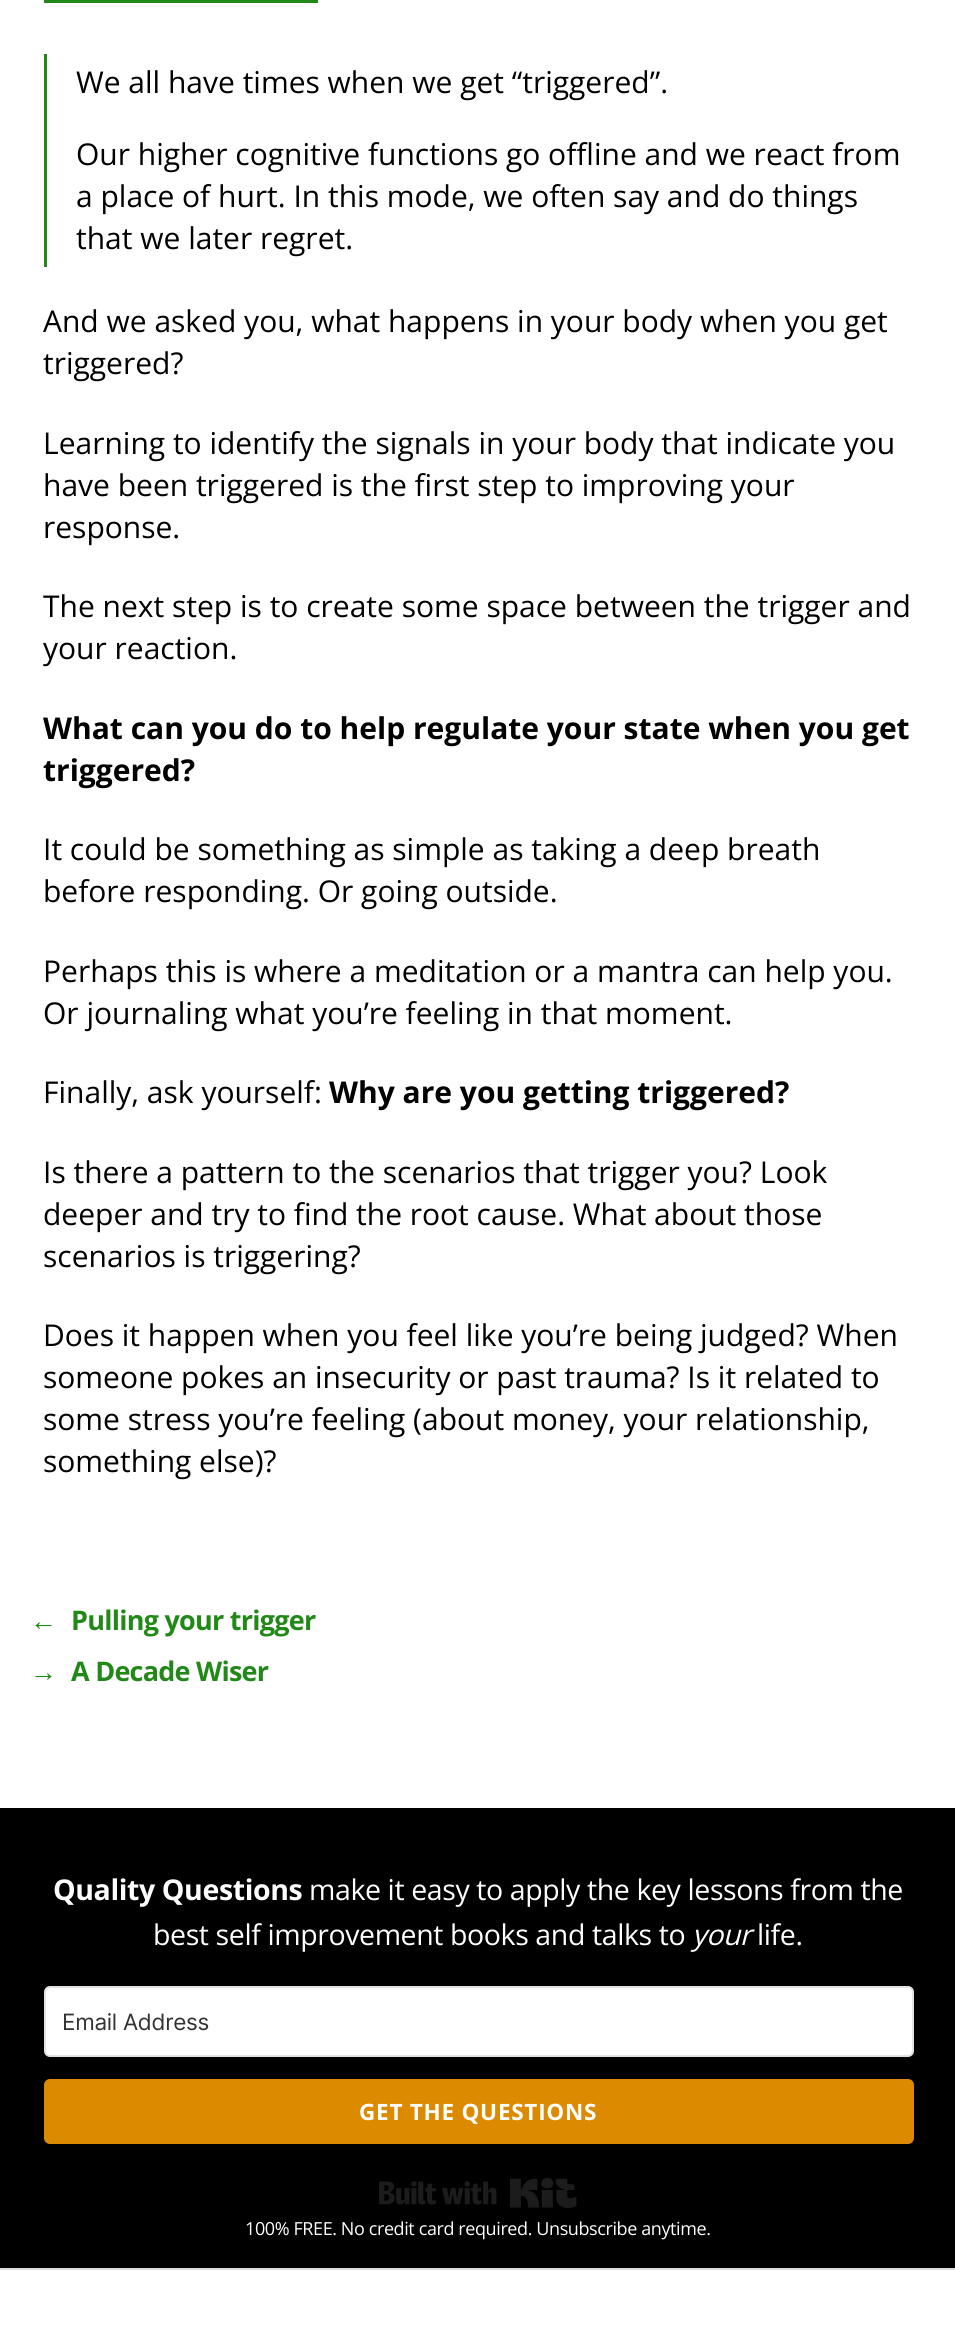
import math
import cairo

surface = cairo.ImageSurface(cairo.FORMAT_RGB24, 955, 2335)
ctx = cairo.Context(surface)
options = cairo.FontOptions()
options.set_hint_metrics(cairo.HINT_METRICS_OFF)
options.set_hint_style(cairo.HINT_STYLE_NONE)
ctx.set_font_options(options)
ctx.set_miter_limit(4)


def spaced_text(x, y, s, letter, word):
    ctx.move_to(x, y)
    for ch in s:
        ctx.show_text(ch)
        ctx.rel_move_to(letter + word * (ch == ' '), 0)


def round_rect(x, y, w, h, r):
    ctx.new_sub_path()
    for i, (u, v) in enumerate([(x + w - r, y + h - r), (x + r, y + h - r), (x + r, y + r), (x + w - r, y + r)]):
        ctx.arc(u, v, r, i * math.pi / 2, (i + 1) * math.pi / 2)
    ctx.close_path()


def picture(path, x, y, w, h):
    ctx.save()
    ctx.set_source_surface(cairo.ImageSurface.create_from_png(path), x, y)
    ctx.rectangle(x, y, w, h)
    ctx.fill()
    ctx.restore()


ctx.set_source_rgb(1, 1, 1)
ctx.paint()
ctx.set_source_rgb(0.133, 0.537, 0.098)
ctx.rectangle(44, 0, 274, 3)
ctx.fill()
ctx.rectangle(44, 54, 3, 213)
ctx.fill()
ctx.select_font_face("Open Sans")
ctx.set_font_size(30)
ctx.set_source_rgb(0, 0, 0)
ctx.move_to(76, 93)
ctx.show_text("We all have times when we get “triggered”.")
ctx.move_to(76, 165)
ctx.show_text("Our higher cognitive functions go offline and we react from")
ctx.move_to(76, 207)
ctx.show_text("a place of hurt. In this mode, we often say and do things")
ctx.move_to(76, 249)
ctx.show_text("that we later regret.")
ctx.move_to(43, 332)
ctx.show_text("And we asked you, what happens in your body when you get")
ctx.move_to(43, 374)
ctx.show_text("triggered?")
ctx.move_to(43, 454)
ctx.show_text("Learning to identify the signals in your body that indicate you")
ctx.move_to(43, 496)
ctx.show_text("have been triggered is the first step to improving your")
ctx.move_to(43, 538)
ctx.show_text("response.")
ctx.move_to(43, 617)
ctx.show_text("The next step is to create some space between the trigger and")
ctx.move_to(43, 659)
ctx.show_text("your reaction.")
ctx.select_font_face("Open Sans", cairo.FONT_SLANT_NORMAL, cairo.FONT_WEIGHT_BOLD)
ctx.move_to(43, 739)
ctx.show_text("What can you do to help regulate your state when you get")
ctx.move_to(43, 781)
ctx.show_text("triggered?")
ctx.select_font_face("Open Sans")
ctx.move_to(43, 860)
ctx.show_text("It could be something as simple as taking a deep breath")
ctx.move_to(43, 902)
ctx.show_text("before responding. Or going outside.")
ctx.move_to(43, 982)
ctx.show_text("Perhaps this is where a meditation or a mantra can help you.")
ctx.move_to(43, 1024)
ctx.show_text("Or journaling what you’re feeling in that moment.")
ctx.move_to(43, 1103)
ctx.show_text("Finally, ask yourself:")
ctx.select_font_face("Open Sans", cairo.FONT_SLANT_NORMAL, cairo.FONT_WEIGHT_BOLD)
ctx.move_to(329, 1103)
ctx.show_text("Why are you getting triggered?")
ctx.select_font_face("Open Sans")
ctx.move_to(43, 1183)
ctx.show_text("Is there a pattern to the scenarios that trigger you? Look")
ctx.move_to(43, 1225)
ctx.show_text("deeper and try to find the root cause. What about those")
ctx.move_to(43, 1267)
ctx.show_text("scenarios is triggering?")
ctx.move_to(43, 1346)
ctx.show_text("Does it happen when you feel like you’re being judged? When")
ctx.move_to(43, 1388)
ctx.show_text("someone pokes an insecurity or past trauma? Is it related to")
ctx.move_to(43, 1430)
ctx.show_text("some stress you’re feeling (about money, your relationship,")
ctx.move_to(43, 1472)
ctx.show_text("something else)?")
ctx.select_font_face("Liberation Sans", cairo.FONT_SLANT_NORMAL, cairo.FONT_WEIGHT_BOLD)
ctx.set_font_size(27)
ctx.set_source_rgb(0.133, 0.537, 0.098)
spaced_text(30, 1630, "←", -0.75, 0)
ctx.select_font_face("Open Sans", cairo.FONT_SLANT_NORMAL, cairo.FONT_WEIGHT_BOLD)
spaced_text(71, 1630, "Pulling your trigger", -0.75, 0)
ctx.select_font_face("Liberation Sans", cairo.FONT_SLANT_NORMAL, cairo.FONT_WEIGHT_BOLD)
spaced_text(30, 1681, "→", -0.75, 0)
ctx.select_font_face("Open Sans", cairo.FONT_SLANT_NORMAL, cairo.FONT_WEIGHT_BOLD)
spaced_text(71, 1681, "A Decade Wiser", -0.75, 0)
ctx.set_source_rgb(0, 0, 0)
ctx.rectangle(0, 1808, 955, 460)
ctx.fill()
ctx.set_font_size(28.5)
ctx.set_source_rgb(1, 1, 1)
spaced_text(53, 1900, "Quality Questions", -0.4, 0)
ctx.select_font_face("Open Sans")
spaced_text(309, 1900, "make it easy to apply the key lessons from the", -0.4, 0)
spaced_text(153, 1945, "best self improvement books and talks to", -0.4, 0)
ctx.select_font_face("Open Sans", cairo.FONT_SLANT_ITALIC)
spaced_text(692, 1945, "your", -0.4, 0)
ctx.select_font_face("Open Sans")
spaced_text(757, 1945, "life.", -0.4, 0)
round_rect(45, 1987, 868, 69, 5)
ctx.fill_preserve()
ctx.set_source_rgb(0.89, 0.89, 0.89)
ctx.stroke()
ctx.select_font_face("Inter")
ctx.set_font_size(22.5)
ctx.set_source_rgb(0.2, 0.2, 0.2)
spaced_text(62, 2030, "Email Address", -0.3, 0)
ctx.set_source_rgb(0.863, 0.545, 0)
round_rect(44, 2079, 870, 65, 6)
ctx.fill()
ctx.select_font_face("Open Sans", cairo.FONT_SLANT_NORMAL, cairo.FONT_WEIGHT_BOLD)
ctx.set_source_rgb(1, 1, 1)
spaced_text(359, 2120, "GET THE QUESTIONS", 0.75, 0)
picture("img1.png", 379, 2178, 198, 30)
ctx.select_font_face("Open Sans")
ctx.set_font_size(18)
spaced_text(245, 2235, "100% FREE. No credit card required. Unsubscribe anytime.", -0.4, 0)
ctx.set_source_rgb(0.859, 0.859, 0.859)
ctx.rectangle(0, 2268, 955, 2)
ctx.fill()
surface.write_to_png("page.png")
